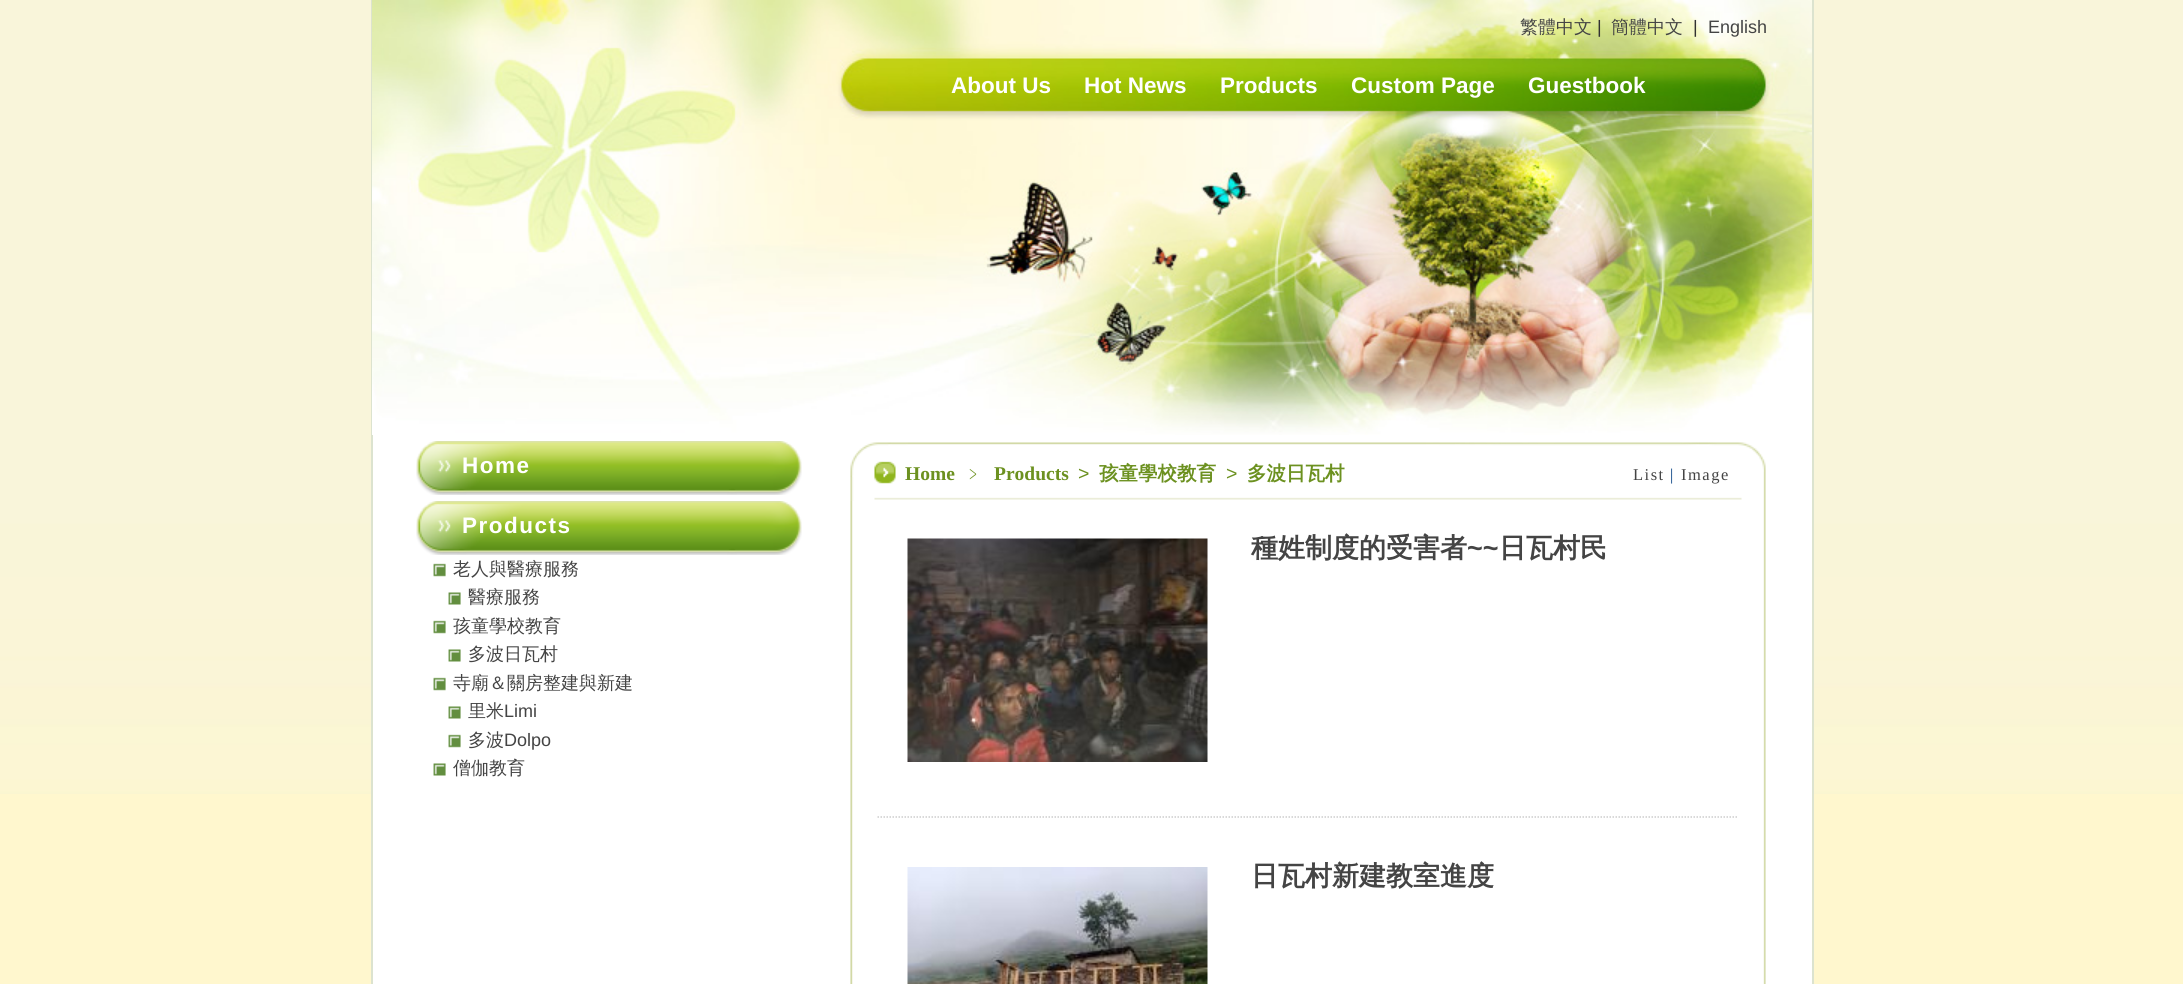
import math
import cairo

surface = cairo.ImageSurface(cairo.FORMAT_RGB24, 2183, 984)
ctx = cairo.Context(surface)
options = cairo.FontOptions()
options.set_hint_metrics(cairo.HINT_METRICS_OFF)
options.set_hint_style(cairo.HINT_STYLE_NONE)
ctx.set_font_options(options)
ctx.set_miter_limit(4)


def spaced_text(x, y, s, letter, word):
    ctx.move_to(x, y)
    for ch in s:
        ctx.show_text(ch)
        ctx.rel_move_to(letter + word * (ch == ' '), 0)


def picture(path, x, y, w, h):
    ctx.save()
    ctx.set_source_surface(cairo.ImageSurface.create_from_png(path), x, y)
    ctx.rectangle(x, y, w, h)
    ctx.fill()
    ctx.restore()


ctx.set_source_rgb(1, 0.965, 0.808)
ctx.paint()
picture("img1.png", 0, 0, 2183, 794)
ctx.set_source_rgb(1, 1, 1)
ctx.rectangle(373, 435, 1439, 549)
ctx.fill()
ctx.set_source_rgb(0.863, 0.89, 0.812)
ctx.rectangle(1812, 0, 2, 984)
ctx.fill()
ctx.rectangle(371, 0, 2, 984)
ctx.fill()
picture("img2.png", 372, 0, 1440, 435)
ctx.select_font_face("WenQuanYi Zen Hei Medium")
ctx.set_font_size(18)
ctx.set_source_rgb(0.267, 0.267, 0.267)
ctx.move_to(1520, 33)
ctx.show_text("繁體中文")
ctx.select_font_face("Liberation Sans")
ctx.set_source_rgb(0.196, 0.196, 0.196)
ctx.move_to(1597, 33)
ctx.show_text("|")
ctx.select_font_face("WenQuanYi Zen Hei Medium")
ctx.set_source_rgb(0.267, 0.267, 0.267)
ctx.move_to(1611, 33)
ctx.show_text("簡體中文")
ctx.select_font_face("Liberation Sans")
ctx.set_source_rgb(0.196, 0.196, 0.196)
ctx.move_to(1693, 33)
ctx.show_text("|")
ctx.set_source_rgb(0.267, 0.267, 0.267)
ctx.move_to(1708, 33)
ctx.show_text("English")
ctx.select_font_face("Liberation Sans", cairo.FONT_SLANT_NORMAL, cairo.FONT_WEIGHT_BOLD)
ctx.set_font_size(22.5)
ctx.set_source_rgb(1, 1, 1)
ctx.move_to(951, 93)
ctx.show_text("About Us")
ctx.move_to(1084, 93)
ctx.show_text("Hot News")
ctx.move_to(1220, 93)
ctx.show_text("Products")
ctx.move_to(1351, 93)
ctx.show_text("Custom Page")
ctx.move_to(1528, 93)
ctx.show_text("Guestbook")
picture("img3.png", 416, 441, 386, 54)
spaced_text(462, 473, "Home", 1.5, 0)
picture("img3.png", 416, 501, 386, 54)
spaced_text(462, 533, "Products", 1.5, 0)
picture("img4.png", 433, 563, 13, 14)
ctx.select_font_face("WenQuanYi Zen Hei Medium")
ctx.set_font_size(18)
ctx.set_source_rgb(0.267, 0.267, 0.267)
ctx.move_to(453, 575)
ctx.show_text("老人與醫療服務")
picture("img5.png", 448, 592, 13, 13)
ctx.move_to(468, 603)
ctx.show_text("醫療服務")
picture("img4.png", 433, 620, 13, 14)
ctx.move_to(453, 632)
ctx.show_text("孩童學校教育")
picture("img5.png", 448, 649, 13, 13)
ctx.move_to(468, 660)
ctx.show_text("多波日瓦村")
picture("img4.png", 433, 677, 13, 14)
ctx.move_to(453, 689)
ctx.show_text("寺廟＆關房整建與新建")
picture("img5.png", 448, 706, 13, 13)
ctx.move_to(468, 717)
ctx.show_text("里米")
ctx.select_font_face("Liberation Sans")
ctx.move_to(504, 717)
ctx.show_text("Limi")
picture("img4.png", 448, 734, 13, 14)
ctx.select_font_face("WenQuanYi Zen Hei Medium")
ctx.move_to(468, 746)
ctx.show_text("多波")
ctx.select_font_face("Liberation Sans")
ctx.move_to(504, 746)
ctx.show_text("Dolpo")
picture("img5.png", 433, 763, 13, 13)
ctx.select_font_face("WenQuanYi Zen Hei Medium")
ctx.move_to(453, 774)
ctx.show_text("僧伽教育")
picture("img6.png", 850, 442, 916, 59)
ctx.select_font_face("Liberation Serif", cairo.FONT_SLANT_NORMAL, cairo.FONT_WEIGHT_BOLD)
ctx.set_font_size(19.5)
ctx.set_source_rgb(0.424, 0.569, 0.125)
ctx.move_to(905, 480)
ctx.show_text("Home")
ctx.select_font_face("WenQuanYi Zen Hei Medium")
ctx.move_to(964, 480)
ctx.show_text("﹥")
ctx.select_font_face("Liberation Serif", cairo.FONT_SLANT_NORMAL, cairo.FONT_WEIGHT_BOLD)
ctx.move_to(994, 480)
ctx.show_text("Products")
ctx.select_font_face("Liberation Sans")
ctx.move_to(1078, 480)
ctx.show_text(">")
ctx.select_font_face("WenQuanYi Zen Hei", cairo.FONT_SLANT_NORMAL, cairo.FONT_WEIGHT_BOLD)
ctx.move_to(1099, 480)
ctx.show_text("孩童學校教育")
ctx.select_font_face("Liberation Sans")
ctx.move_to(1226, 480)
ctx.show_text(">")
ctx.select_font_face("WenQuanYi Zen Hei", cairo.FONT_SLANT_NORMAL, cairo.FONT_WEIGHT_BOLD)
ctx.move_to(1247, 480)
ctx.show_text("多波日瓦村")
ctx.select_font_face("Liberation Serif")
ctx.set_font_size(16.5)
ctx.set_source_rgb(0.267, 0.267, 0.267)
spaced_text(1633, 480, "List", 1.5, 0)
ctx.set_source_rgb(0, 0.235, 0.502)
spaced_text(1670, 480, "|", 1.5, 0)
ctx.set_source_rgb(0.267, 0.267, 0.267)
spaced_text(1681, 480, "Image", 1.5, 0)
picture("img7.png", 850, 501, 916, 483)
picture("img8.png", 907, 538, 301, 224)
ctx.select_font_face("WenQuanYi Zen Hei", cairo.FONT_SLANT_NORMAL, cairo.FONT_WEIGHT_BOLD)
ctx.set_font_size(27)
ctx.move_to(1251, 557)
ctx.show_text("種姓制度的受害者")
ctx.select_font_face("Liberation Sans", cairo.FONT_SLANT_NORMAL, cairo.FONT_WEIGHT_BOLD)
ctx.move_to(1467, 557)
ctx.show_text("~~")
ctx.select_font_face("WenQuanYi Zen Hei", cairo.FONT_SLANT_NORMAL, cairo.FONT_WEIGHT_BOLD)
ctx.move_to(1499, 557)
ctx.show_text("日瓦村民")
ctx.new_path()
ctx.move_to(877.5, 817)
ctx.line_to(1737, 817)
ctx.set_source_rgb(0.8, 0.8, 0.8)
ctx.set_line_width(1.5)
ctx.set_dash([1.5, 1.5])
ctx.stroke()
picture("img9.png", 907, 867, 301, 117)
ctx.set_source_rgb(0.267, 0.267, 0.267)
ctx.move_to(1251, 885)
ctx.show_text("日瓦村新建教室進度")
surface.write_to_png("page.png")
